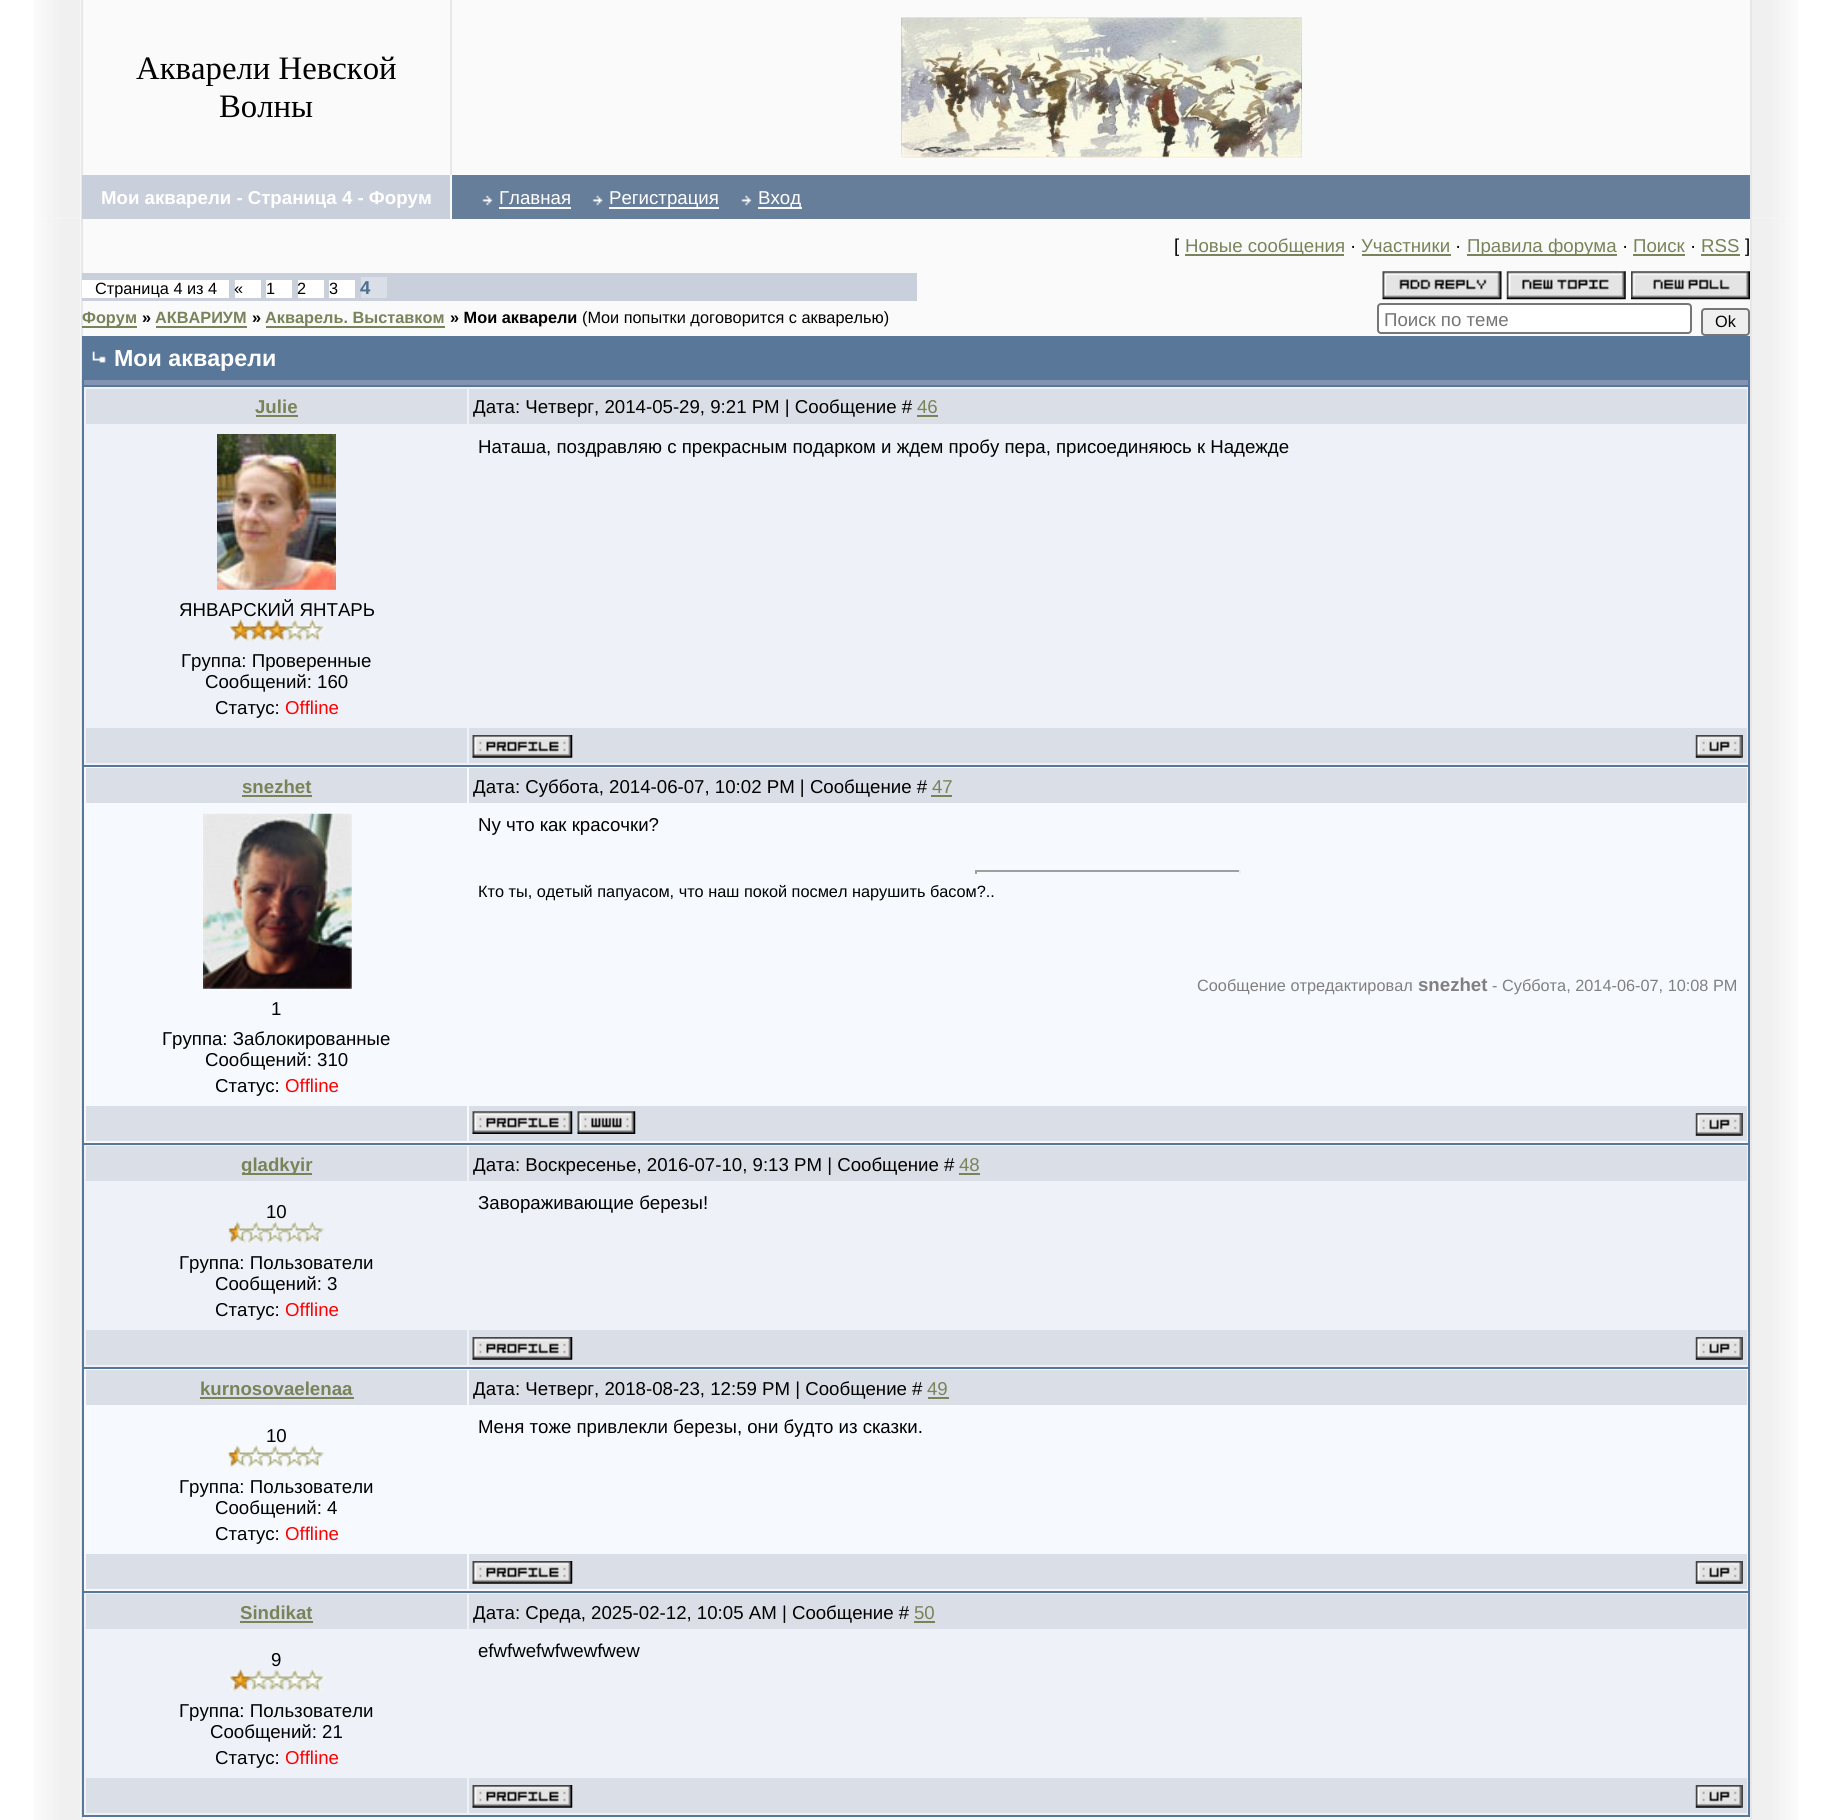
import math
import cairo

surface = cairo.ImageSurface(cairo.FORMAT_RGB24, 1831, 1820)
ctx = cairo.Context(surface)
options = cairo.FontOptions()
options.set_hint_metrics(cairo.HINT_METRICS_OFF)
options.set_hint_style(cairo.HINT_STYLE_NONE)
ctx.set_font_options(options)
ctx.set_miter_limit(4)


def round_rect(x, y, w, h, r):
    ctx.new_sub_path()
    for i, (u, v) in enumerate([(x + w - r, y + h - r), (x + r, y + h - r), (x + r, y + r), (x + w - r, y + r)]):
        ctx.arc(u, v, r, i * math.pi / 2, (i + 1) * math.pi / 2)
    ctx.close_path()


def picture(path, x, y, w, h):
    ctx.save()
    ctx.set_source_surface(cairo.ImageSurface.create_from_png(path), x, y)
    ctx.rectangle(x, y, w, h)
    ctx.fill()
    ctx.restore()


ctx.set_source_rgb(1, 1, 1)
ctx.paint()
picture("img1.png", 34, 0, 47, 219)
ctx.set_source_rgb(0.98, 0.98, 0.98)
ctx.rectangle(83, 0, 1667, 175)
ctx.fill()
ctx.set_source_rgb(0.898, 0.906, 0.918)
ctx.rectangle(1750, 0, 2, 1820)
ctx.fill()
ctx.rectangle(81, 0, 2, 1820)
ctx.fill()
ctx.rectangle(450, 0, 2, 175)
ctx.fill()
ctx.select_font_face("Liberation Serif")
ctx.set_font_size(32.75)
ctx.set_source_rgb(0, 0, 0)
ctx.move_to(136, 79)
ctx.show_text("Акварели Невской")
ctx.move_to(219, 117)
ctx.show_text("Волны")
picture("img2.png", 901, 17, 401, 141)
ctx.set_source_rgb(0.788, 0.816, 0.859)
ctx.rectangle(82, 175, 368, 44)
ctx.fill()
ctx.set_source_rgb(0.98, 0.98, 0.98)
ctx.rectangle(450, 175, 2, 44)
ctx.fill()
ctx.select_font_face("Liberation Sans", cairo.FONT_SLANT_NORMAL, cairo.FONT_WEIGHT_BOLD)
ctx.set_font_size(18.65)
ctx.set_source_rgb(1, 1, 1)
ctx.move_to(101, 204)
ctx.show_text("Мои акварели - Страница 4 - Форум")
ctx.set_source_rgb(0.404, 0.494, 0.604)
ctx.rectangle(452, 175, 1298, 44)
ctx.fill()
picture("img3.png", 482, 195, 11, 11)
ctx.select_font_face("Liberation Sans")
ctx.set_source_rgb(1, 1, 1)
ctx.move_to(499, 204)
ctx.show_text("Главная")
ctx.set_source_rgb(0.98, 0.98, 0.98)
ctx.rectangle(499, 207, 72, 2)
ctx.fill()
picture("img4.png", 592, 195, 11, 11)
ctx.rectangle(609, 207, 110, 2)
ctx.fill()
ctx.set_source_rgb(1, 1, 1)
ctx.move_to(609, 204)
ctx.show_text("Регистрация")
picture("img3.png", 741, 195, 11, 11)
ctx.set_source_rgb(0.98, 0.98, 0.98)
ctx.rectangle(758, 207, 44, 2)
ctx.fill()
ctx.set_source_rgb(1, 1, 1)
ctx.move_to(758, 204)
ctx.show_text("Вход")
picture("img5.png", 1752, 0, 46, 219)
picture("img6.png", 34, 219, 47, 1601)
ctx.set_source_rgb(0.98, 0.98, 0.98)
ctx.rectangle(83, 219, 1667, 1601)
ctx.fill()
ctx.set_source_rgb(0, 0, 0)
ctx.move_to(1174, 252)
ctx.show_text("[")
ctx.set_source_rgb(0.475, 0.514, 0.353)
ctx.rectangle(1185, 254, 159, 2)
ctx.fill()
ctx.move_to(1185, 252)
ctx.show_text("Новые сообщения")
ctx.set_source_rgb(0, 0, 0)
ctx.move_to(1350, 252)
ctx.show_text("·")
ctx.set_source_rgb(0.475, 0.514, 0.353)
ctx.move_to(1361, 252)
ctx.show_text("Участники")
ctx.rectangle(1362, 254, 89, 2)
ctx.fill()
ctx.set_source_rgb(0, 0, 0)
ctx.move_to(1455, 252)
ctx.show_text("·")
ctx.set_source_rgb(0.475, 0.514, 0.353)
ctx.rectangle(1467, 254, 150, 2)
ctx.fill()
ctx.move_to(1467, 252)
ctx.show_text("Правила форума")
ctx.set_source_rgb(0, 0, 0)
ctx.move_to(1622, 252)
ctx.show_text("·")
ctx.set_source_rgb(0.475, 0.514, 0.353)
ctx.move_to(1633, 252)
ctx.show_text("Поиск")
ctx.rectangle(1633, 254, 52, 2)
ctx.fill()
ctx.set_source_rgb(0, 0, 0)
ctx.move_to(1690, 252)
ctx.show_text("·")
ctx.set_source_rgb(0.475, 0.514, 0.353)
ctx.move_to(1701, 252)
ctx.show_text("RSS")
ctx.rectangle(1701, 254, 39, 2)
ctx.fill()
ctx.set_source_rgb(0, 0, 0)
ctx.move_to(1745, 252)
ctx.show_text("]")
ctx.set_source_rgb(0.788, 0.816, 0.859)
ctx.rectangle(82, 273, 835, 28)
ctx.fill()
ctx.set_source_rgb(1, 1, 1)
ctx.rectangle(82, 280, 147, 18)
ctx.fill()
ctx.set_font_size(16.3)
ctx.set_source_rgb(0, 0, 0)
ctx.move_to(95, 294)
ctx.show_text("Страница 4 из 4")
ctx.set_source_rgb(1, 1, 1)
ctx.rectangle(235, 280, 26, 18)
ctx.fill()
ctx.set_source_rgb(0, 0, 0)
ctx.move_to(234, 294)
ctx.show_text("«")
ctx.set_source_rgb(1, 1, 1)
ctx.rectangle(266, 280, 26, 18)
ctx.fill()
ctx.set_source_rgb(0, 0, 0)
ctx.move_to(266, 294)
ctx.show_text("1")
ctx.set_source_rgb(1, 1, 1)
ctx.rectangle(298, 280, 26, 18)
ctx.fill()
ctx.set_source_rgb(0, 0, 0)
ctx.move_to(297, 294)
ctx.show_text("2")
ctx.set_source_rgb(1, 1, 1)
ctx.rectangle(329, 280, 26, 18)
ctx.fill()
ctx.set_source_rgb(0, 0, 0)
ctx.move_to(329, 294)
ctx.show_text("3")
ctx.set_source_rgb(0.855, 0.875, 0.906)
ctx.rectangle(361, 277, 26, 21)
ctx.fill()
ctx.select_font_face("Liberation Sans", cairo.FONT_SLANT_NORMAL, cairo.FONT_WEIGHT_BOLD)
ctx.set_font_size(18.65)
ctx.set_source_rgb(0.302, 0.427, 0.569)
ctx.move_to(360, 294)
ctx.show_text("4")
picture("img7.png", 1382, 271, 120, 29)
picture("img8.png", 1506, 271, 120, 29)
picture("img9.png", 1631, 271, 119, 29)
ctx.set_source_rgb(0.475, 0.514, 0.353)
ctx.rectangle(82, 326, 55, 2)
ctx.fill()
ctx.set_font_size(16.3)
ctx.move_to(82, 323)
ctx.show_text("Форум")
ctx.set_source_rgb(0, 0, 0)
ctx.move_to(142, 323)
ctx.show_text("»")
ctx.set_source_rgb(0.475, 0.514, 0.353)
ctx.move_to(155, 323)
ctx.show_text("АКВАРИУМ")
ctx.rectangle(156, 326, 91, 2)
ctx.fill()
ctx.set_source_rgb(0, 0, 0)
ctx.move_to(252, 323)
ctx.show_text("»")
ctx.set_source_rgb(0.475, 0.514, 0.353)
ctx.rectangle(266, 326, 179, 2)
ctx.fill()
ctx.move_to(265, 323)
ctx.show_text("Акварель. Выставком")
ctx.set_source_rgb(0, 0, 0)
ctx.move_to(450, 323)
ctx.show_text("» Мои акварели")
ctx.select_font_face("Liberation Sans")
ctx.move_to(582, 323)
ctx.show_text("(Мои попытки договорится с акварелью)")
ctx.set_source_rgb(1, 1, 1)
round_rect(1378, 304, 313, 29, 3)
ctx.fill_preserve()
ctx.set_source_rgb(0.463, 0.463, 0.463)
ctx.stroke()
ctx.set_font_size(18.65)
ctx.set_source_rgb(0.459, 0.459, 0.459)
ctx.move_to(1384, 326)
ctx.show_text("Поиск по теме")
ctx.set_source_rgb(0.937, 0.937, 0.937)
round_rect(1702, 309, 47, 26, 3)
ctx.fill_preserve()
ctx.set_source_rgb(0.463, 0.463, 0.463)
ctx.stroke()
ctx.set_font_size(16.3)
ctx.set_source_rgb(0, 0, 0)
ctx.move_to(1715, 327)
ctx.show_text("Ok")
ctx.set_source_rgb(0.349, 0.467, 0.596)
ctx.rectangle(82, 336, 1668, 1481)
ctx.fill()
picture("img10.png", 92, 351, 14, 12)
ctx.select_font_face("Liberation Sans", cairo.FONT_SLANT_NORMAL, cairo.FONT_WEIGHT_BOLD)
ctx.set_font_size(23.25)
ctx.set_source_rgb(1, 1, 1)
ctx.move_to(114, 366)
ctx.show_text("Мои акварели")
ctx.set_source_rgb(0.514, 0.58, 0.698)
ctx.rectangle(84, 380, 1664, 5)
ctx.fill()
ctx.set_source_rgb(0.933, 0.949, 0.969)
ctx.rectangle(84, 387, 1664, 378)
ctx.fill()
ctx.set_source_rgb(0.855, 0.875, 0.906)
ctx.rectangle(86, 389, 381, 35)
ctx.fill()
ctx.set_font_size(18.65)
ctx.set_source_rgb(0.475, 0.514, 0.353)
ctx.move_to(255, 413)
ctx.show_text("Julie")
ctx.rectangle(256, 415, 42, 2)
ctx.fill()
ctx.set_source_rgb(0.855, 0.875, 0.906)
ctx.rectangle(469, 389, 1278, 35)
ctx.fill()
ctx.select_font_face("Liberation Sans")
ctx.set_source_rgb(0, 0, 0)
ctx.move_to(473, 413)
ctx.show_text("Дата: Четверг, 2014-05-29, 9:21 PM | Сообщение #")
ctx.set_source_rgb(0.475, 0.514, 0.353)
ctx.move_to(917, 413)
ctx.show_text("46")
ctx.rectangle(917, 415, 21, 2)
ctx.fill()
ctx.set_source_rgb(0, 0, 0)
ctx.move_to(478, 453)
ctx.show_text("Наташа, поздравляю с прекрасным подарком и ждем пробу пера, присоединяюсь к Надежде")
picture("img11.png", 217, 434, 119, 156)
ctx.move_to(179, 616)
ctx.show_text("ЯНВАРСКИЙ ЯНТАРЬ")
picture("img12.png", 227, 619, 99, 22)
ctx.move_to(181, 667)
ctx.show_text("Группа: Проверенные")
ctx.move_to(205, 688)
ctx.show_text("Сообщений: 160")
ctx.move_to(215, 714)
ctx.show_text("Статус:")
ctx.set_source_rgb(1, 0, 0)
ctx.move_to(285, 714)
ctx.show_text("Offline")
ctx.set_source_rgb(0.855, 0.875, 0.906)
ctx.rectangle(86, 728, 381, 35)
ctx.fill()
ctx.rectangle(469, 728, 1278, 35)
ctx.fill()
picture("img13.png", 472, 735, 101, 23)
picture("img14.png", 1695, 735, 48, 23)
ctx.set_source_rgb(0.961, 0.976, 0.992)
ctx.rectangle(84, 767, 1664, 376)
ctx.fill()
ctx.set_source_rgb(0.855, 0.875, 0.906)
ctx.rectangle(86, 768, 381, 35)
ctx.fill()
ctx.select_font_face("Liberation Sans", cairo.FONT_SLANT_NORMAL, cairo.FONT_WEIGHT_BOLD)
ctx.set_source_rgb(0.475, 0.514, 0.353)
ctx.move_to(242, 793)
ctx.show_text("snezhet")
ctx.rectangle(242, 795, 70, 2)
ctx.fill()
ctx.set_source_rgb(0.855, 0.875, 0.906)
ctx.rectangle(469, 768, 1278, 35)
ctx.fill()
ctx.select_font_face("Liberation Sans")
ctx.set_source_rgb(0, 0, 0)
ctx.move_to(473, 793)
ctx.show_text("Дата: Суббота, 2014-06-07, 10:02 PM | Сообщение #")
ctx.set_source_rgb(0.475, 0.514, 0.353)
ctx.move_to(932, 793)
ctx.show_text("47")
ctx.rectangle(931, 795, 21, 2)
ctx.fill()
ctx.set_source_rgb(0, 0, 0)
ctx.move_to(478, 831)
ctx.show_text("Nу что как красочки?")
ctx.set_source_rgb(0.624, 0.624, 0.624)
ctx.rectangle(975, 870, 266, 2)
ctx.fill()
ctx.set_source_rgb(0.933, 0.933, 0.933)
ctx.rectangle(1239, 870, 2, 4)
ctx.fill()
ctx.set_source_rgb(0.624, 0.624, 0.624)
ctx.rectangle(975, 870, 2, 4)
ctx.fill()
ctx.set_font_size(16.3)
ctx.set_source_rgb(0, 0, 0)
ctx.move_to(478, 897)
ctx.show_text("Кто ты, одетый папуасом, что наш покой посмел нарушить басом?..")
ctx.set_source_rgb(0.502, 0.502, 0.502)
ctx.move_to(1197, 991)
ctx.show_text("Сообщение отредактировал")
ctx.select_font_face("Liberation Sans", cairo.FONT_SLANT_NORMAL, cairo.FONT_WEIGHT_BOLD)
ctx.set_font_size(18.65)
ctx.move_to(1418, 991)
ctx.show_text("snezhet")
ctx.select_font_face("Liberation Sans")
ctx.set_font_size(16.3)
ctx.move_to(1492, 991)
ctx.show_text("- Суббота, 2014-06-07, 10:08 PM")
picture("img15.png", 203, 813, 149, 176)
ctx.set_font_size(18.65)
ctx.set_source_rgb(0, 0, 0)
ctx.move_to(271, 1015)
ctx.show_text("1")
ctx.move_to(162, 1045)
ctx.show_text("Группа: Заблокированные")
ctx.move_to(205, 1066)
ctx.show_text("Сообщений: 310")
ctx.move_to(215, 1092)
ctx.show_text("Статус:")
ctx.set_source_rgb(1, 0, 0)
ctx.move_to(285, 1092)
ctx.show_text("Offline")
ctx.set_source_rgb(0.855, 0.875, 0.906)
ctx.rectangle(86, 1106, 381, 35)
ctx.fill()
ctx.rectangle(469, 1106, 1278, 35)
ctx.fill()
picture("img16.png", 472, 1111, 101, 23)
picture("img17.png", 577, 1111, 59, 23)
picture("img14.png", 1695, 1113, 48, 23)
ctx.set_source_rgb(0.933, 0.949, 0.969)
ctx.rectangle(84, 1145, 1664, 222)
ctx.fill()
ctx.set_source_rgb(0.855, 0.875, 0.906)
ctx.rectangle(86, 1146, 381, 35)
ctx.fill()
ctx.set_source_rgb(0.475, 0.514, 0.353)
ctx.rectangle(242, 1173, 70, 2)
ctx.fill()
ctx.select_font_face("Liberation Sans", cairo.FONT_SLANT_NORMAL, cairo.FONT_WEIGHT_BOLD)
ctx.move_to(241, 1171)
ctx.show_text("gladkyir")
ctx.set_source_rgb(0.855, 0.875, 0.906)
ctx.rectangle(469, 1146, 1278, 35)
ctx.fill()
ctx.select_font_face("Liberation Sans")
ctx.set_source_rgb(0, 0, 0)
ctx.move_to(473, 1171)
ctx.show_text("Дата: Воскресенье, 2016-07-10, 9:13 PM | Сообщение #")
ctx.set_source_rgb(0.475, 0.514, 0.353)
ctx.move_to(959, 1171)
ctx.show_text("48")
ctx.rectangle(959, 1173, 21, 2)
ctx.fill()
ctx.set_source_rgb(0, 0, 0)
ctx.move_to(266, 1218)
ctx.show_text("10")
picture("img18.png", 227, 1221, 98, 22)
ctx.move_to(179, 1269)
ctx.show_text("Группа: Пользователи")
ctx.move_to(215, 1290)
ctx.show_text("Сообщений: 3")
ctx.move_to(215, 1316)
ctx.show_text("Статус:")
ctx.set_source_rgb(1, 0, 0)
ctx.move_to(285, 1316)
ctx.show_text("Offline")
ctx.set_source_rgb(0, 0, 0)
ctx.move_to(478, 1209)
ctx.show_text("Завораживающие березы!")
ctx.set_source_rgb(0.855, 0.875, 0.906)
ctx.rectangle(86, 1330, 381, 35)
ctx.fill()
ctx.rectangle(469, 1330, 1278, 35)
ctx.fill()
picture("img13.png", 472, 1337, 101, 23)
picture("img14.png", 1695, 1337, 48, 23)
ctx.set_source_rgb(0.961, 0.976, 0.992)
ctx.rectangle(84, 1369, 1664, 222)
ctx.fill()
ctx.set_source_rgb(0.855, 0.875, 0.906)
ctx.rectangle(86, 1370, 381, 35)
ctx.fill()
ctx.select_font_face("Liberation Sans", cairo.FONT_SLANT_NORMAL, cairo.FONT_WEIGHT_BOLD)
ctx.set_source_rgb(0.475, 0.514, 0.353)
ctx.move_to(200, 1395)
ctx.show_text("kurnosovaelenaa")
ctx.rectangle(200, 1397, 154, 2)
ctx.fill()
ctx.set_source_rgb(0.855, 0.875, 0.906)
ctx.rectangle(469, 1370, 1278, 35)
ctx.fill()
ctx.select_font_face("Liberation Sans")
ctx.set_source_rgb(0, 0, 0)
ctx.move_to(473, 1395)
ctx.show_text("Дата: Четверг, 2018-08-23, 12:59 PM | Сообщение #")
ctx.set_source_rgb(0.475, 0.514, 0.353)
ctx.move_to(927, 1395)
ctx.show_text("49")
ctx.rectangle(928, 1397, 21, 2)
ctx.fill()
ctx.set_source_rgb(0, 0, 0)
ctx.move_to(266, 1442)
ctx.show_text("10")
picture("img19.png", 227, 1445, 98, 22)
ctx.move_to(179, 1493)
ctx.show_text("Группа: Пользователи")
ctx.move_to(215, 1514)
ctx.show_text("Сообщений: 4")
ctx.move_to(215, 1540)
ctx.show_text("Статус:")
ctx.set_source_rgb(1, 0, 0)
ctx.move_to(285, 1540)
ctx.show_text("Offline")
ctx.set_source_rgb(0, 0, 0)
ctx.move_to(478, 1433)
ctx.show_text("Меня тоже привлекли березы, они будто из сказки.")
ctx.set_source_rgb(0.855, 0.875, 0.906)
ctx.rectangle(86, 1554, 381, 35)
ctx.fill()
ctx.rectangle(469, 1554, 1278, 35)
ctx.fill()
picture("img13.png", 472, 1561, 101, 23)
picture("img14.png", 1695, 1561, 48, 23)
ctx.set_source_rgb(0.933, 0.949, 0.969)
ctx.rectangle(84, 1593, 1664, 222)
ctx.fill()
ctx.set_source_rgb(0.855, 0.875, 0.906)
ctx.rectangle(86, 1594, 381, 35)
ctx.fill()
ctx.select_font_face("Liberation Sans", cairo.FONT_SLANT_NORMAL, cairo.FONT_WEIGHT_BOLD)
ctx.set_source_rgb(0.475, 0.514, 0.353)
ctx.move_to(240, 1619)
ctx.show_text("Sindikat")
ctx.rectangle(240, 1621, 73, 2)
ctx.fill()
ctx.set_source_rgb(0.855, 0.875, 0.906)
ctx.rectangle(469, 1594, 1278, 35)
ctx.fill()
ctx.select_font_face("Liberation Sans")
ctx.set_source_rgb(0, 0, 0)
ctx.move_to(473, 1619)
ctx.show_text("Дата: Среда, 2025-02-12, 10:05 AM | Сообщение #")
ctx.set_source_rgb(0.475, 0.514, 0.353)
ctx.move_to(914, 1619)
ctx.show_text("50")
ctx.rectangle(914, 1621, 21, 2)
ctx.fill()
ctx.set_source_rgb(0, 0, 0)
ctx.move_to(478, 1657)
ctx.show_text("efwfwefwfwewfwew")
ctx.move_to(271, 1666)
ctx.show_text("9")
picture("img20.png", 227, 1669, 99, 22)
ctx.move_to(179, 1717)
ctx.show_text("Группа: Пользователи")
ctx.move_to(210, 1738)
ctx.show_text("Сообщений: 21")
ctx.move_to(215, 1764)
ctx.show_text("Статус:")
ctx.set_source_rgb(1, 0, 0)
ctx.move_to(285, 1764)
ctx.show_text("Offline")
ctx.set_source_rgb(0.855, 0.875, 0.906)
ctx.rectangle(86, 1778, 381, 35)
ctx.fill()
ctx.rectangle(469, 1778, 1278, 35)
ctx.fill()
picture("img13.png", 472, 1785, 101, 23)
picture("img14.png", 1695, 1785, 48, 23)
picture("img21.png", 1752, 219, 46, 1601)
surface.write_to_png("page.png")
